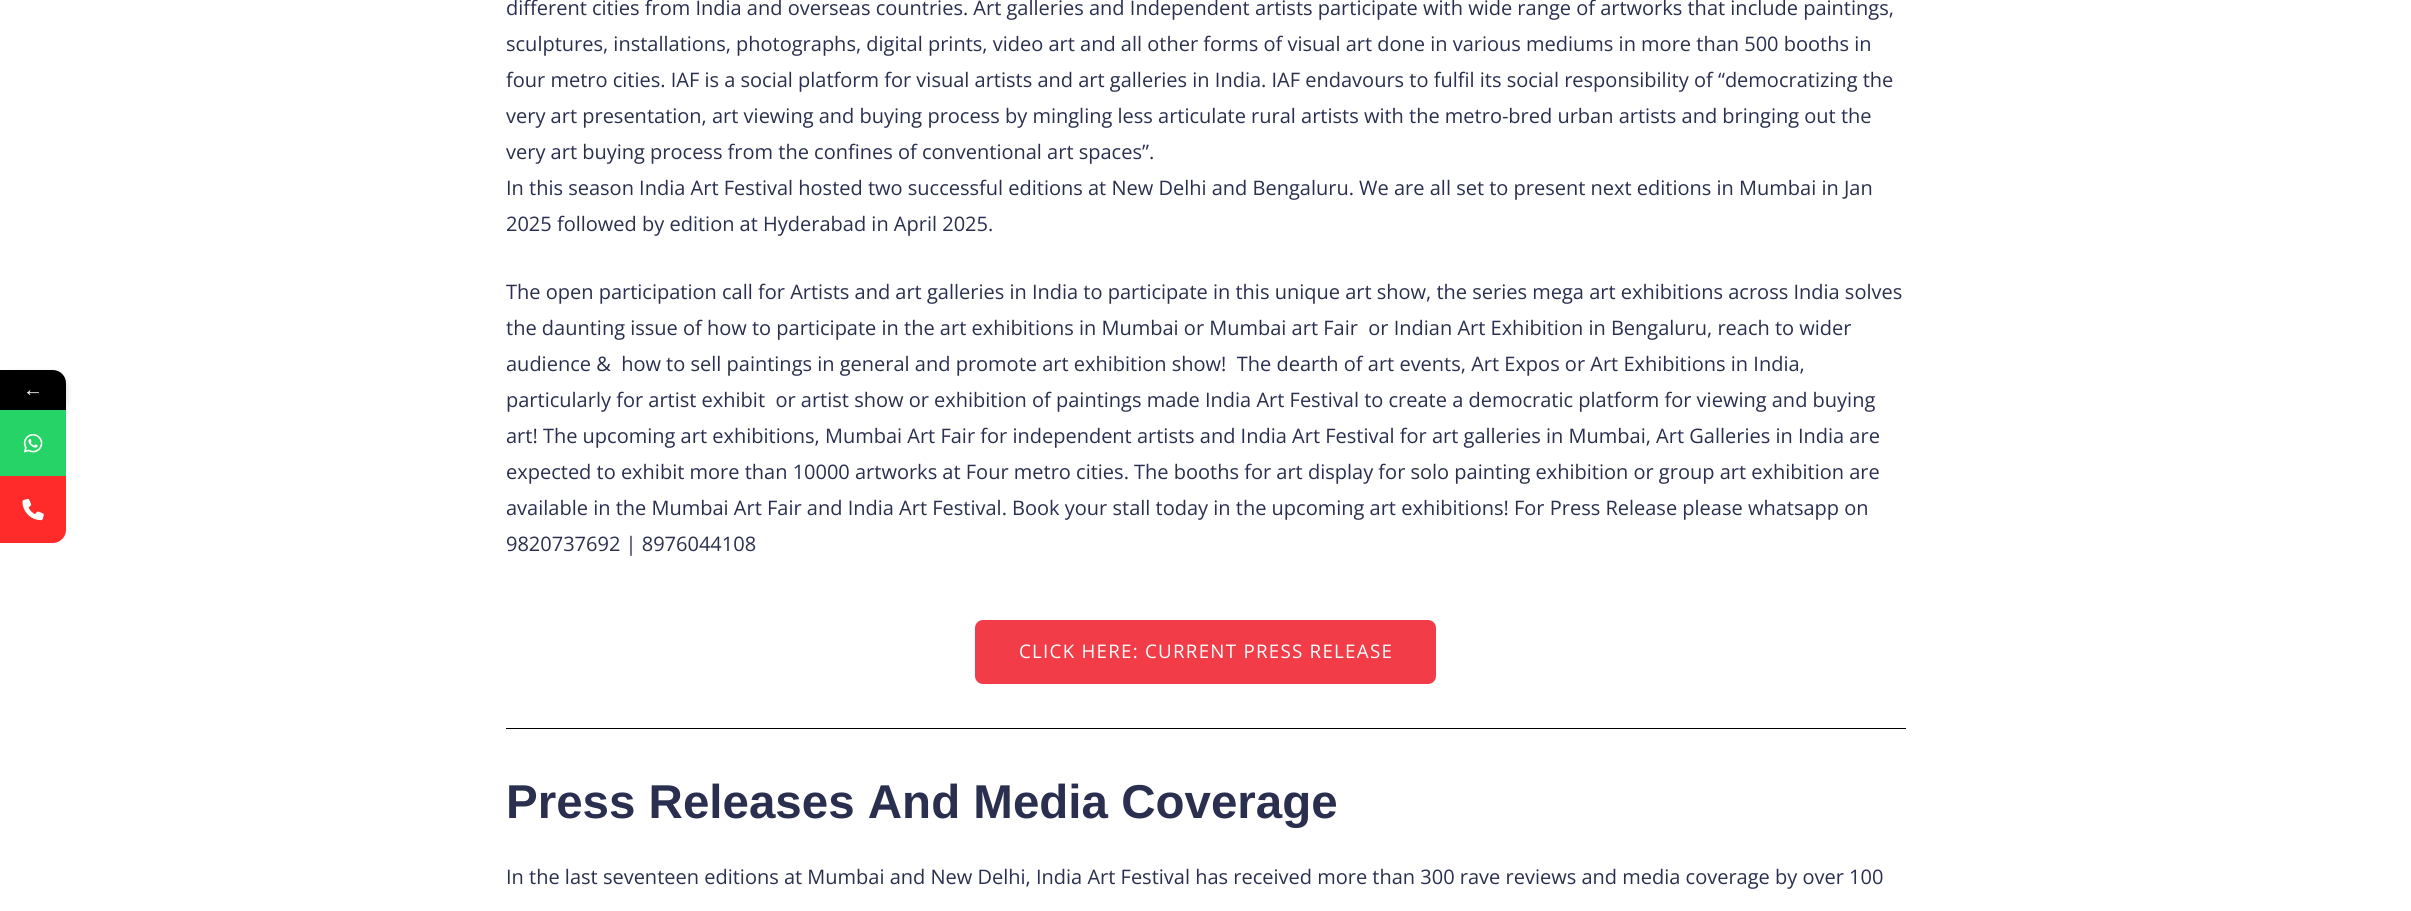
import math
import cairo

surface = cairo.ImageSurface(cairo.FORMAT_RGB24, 2411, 911)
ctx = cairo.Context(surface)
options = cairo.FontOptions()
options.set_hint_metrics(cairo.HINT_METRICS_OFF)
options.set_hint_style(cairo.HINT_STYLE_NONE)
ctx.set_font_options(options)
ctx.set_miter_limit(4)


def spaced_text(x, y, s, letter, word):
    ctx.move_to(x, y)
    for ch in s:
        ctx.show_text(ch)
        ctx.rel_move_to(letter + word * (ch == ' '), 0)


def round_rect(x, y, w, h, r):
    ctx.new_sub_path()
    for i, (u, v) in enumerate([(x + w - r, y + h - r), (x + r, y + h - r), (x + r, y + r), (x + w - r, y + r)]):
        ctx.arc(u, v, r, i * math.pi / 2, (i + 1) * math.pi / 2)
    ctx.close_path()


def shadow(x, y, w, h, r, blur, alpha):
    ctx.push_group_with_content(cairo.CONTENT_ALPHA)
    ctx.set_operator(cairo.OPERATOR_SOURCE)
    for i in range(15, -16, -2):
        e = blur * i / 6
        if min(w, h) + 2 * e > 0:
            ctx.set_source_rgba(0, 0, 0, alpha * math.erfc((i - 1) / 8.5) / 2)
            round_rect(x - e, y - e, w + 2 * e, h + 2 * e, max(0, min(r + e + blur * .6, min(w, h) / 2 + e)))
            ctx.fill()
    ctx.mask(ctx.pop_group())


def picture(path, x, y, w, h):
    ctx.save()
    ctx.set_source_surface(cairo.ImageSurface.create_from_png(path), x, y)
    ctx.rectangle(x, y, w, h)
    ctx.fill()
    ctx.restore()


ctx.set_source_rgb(1, 1, 1)
ctx.paint()
ctx.set_source_rgb(0, 0, 0)
shadow(0, 374, 66, 40, 13, 4, 0.16)
ctx.set_source_rgb(0, 0, 0)
ctx.new_path()
ctx.move_to(0, 370)
ctx.line_to(53, 370)
ctx.curve_to(60, 370, 66, 376, 66, 383)
ctx.line_to(66, 410)
ctx.line_to(0, 410)
ctx.close_path()
ctx.fill()
ctx.select_font_face("Liberation Serif")
ctx.set_font_size(20)
ctx.set_source_rgb(1, 1, 1)
ctx.move_to(23, 396)
ctx.show_text("←")
ctx.set_source_rgb(0.149, 0.827, 0.404)
ctx.rectangle(0, 410, 66, 66)
ctx.fill()
picture("img1.png", 23, 434, 20, 19)
ctx.set_source_rgb(1, 0.169, 0.169)
ctx.new_path()
ctx.move_to(0, 476)
ctx.line_to(66, 476)
ctx.line_to(66, 530)
ctx.curve_to(66, 537, 60, 543, 53, 543)
ctx.line_to(0, 543)
ctx.close_path()
ctx.fill()
picture("img2.png", 22, 498, 22, 23)
ctx.select_font_face("Open Sans")
ctx.set_source_rgb(0.165, 0.184, 0.31)
ctx.move_to(506, 15)
ctx.show_text("different cities from India and overseas countries. Art galleries and Independent artists participate with wide range of artworks that include paintings,")
ctx.move_to(506, 51)
ctx.show_text("sculptures, installations, photographs, digital prints, video art and all other forms of visual art done in various mediums in more than 500 booths in")
ctx.move_to(506, 87)
ctx.show_text("four metro cities. IAF is a social platform for visual artists and art galleries in India. IAF endavours to fulfil its social responsibility of “democratizing the")
ctx.move_to(506, 123)
ctx.show_text("very art presentation, art viewing and buying process by mingling less articulate rural artists with the metro-bred urban artists and bringing out the")
ctx.move_to(506, 159)
ctx.show_text("very art buying process from the confines of conventional art spaces”.")
ctx.move_to(506, 195)
ctx.show_text("In this season India Art Festival hosted two successful editions at New Delhi and Bengaluru. We are all set to present next editions in Mumbai in Jan")
ctx.move_to(506, 231)
ctx.show_text("2025 followed by edition at Hyderabad in April 2025.")
ctx.move_to(506, 299)
ctx.show_text("The open participation call for Artists and art galleries in India to participate in this unique art show, the series mega art exhibitions across India solves")
ctx.move_to(506, 335)
ctx.show_text("the daunting issue of how to participate in the art exhibitions in Mumbai or Mumbai art Fair  or Indian Art Exhibition in Bengaluru, reach to wider")
ctx.move_to(506, 371)
ctx.show_text("audience &  how to sell paintings in general and promote art exhibition show!  The dearth of art events, Art Expos or Art Exhibitions in India,")
ctx.move_to(506, 407)
ctx.show_text("particularly for artist exhibit  or artist show or exhibition of paintings made India Art Festival to create a democratic platform for viewing and buying")
ctx.move_to(506, 443)
ctx.show_text("art! The upcoming art exhibitions, Mumbai Art Fair for independent artists and India Art Festival for art galleries in Mumbai, Art Galleries in India are")
ctx.move_to(506, 479)
ctx.show_text("expected to exhibit more than 10000 artworks at Four metro cities. The booths for art display for solo painting exhibition or group art exhibition are")
ctx.move_to(506, 515)
ctx.show_text("available in the Mumbai Art Fair and India Art Festival. Book your stall today in the upcoming art exhibitions! For Press Release please whatsapp on")
ctx.move_to(506, 551)
ctx.show_text("9820737692 | 8976044108")
ctx.set_source_rgb(0.949, 0.239, 0.286)
round_rect(975, 620, 461, 64, 8)
ctx.fill()
ctx.set_font_size(18.75)
ctx.set_source_rgb(1, 1, 1)
spaced_text(1019, 658, "CLICK HERE: CURRENT PRESS RELEASE", 1.25, 0)
ctx.set_source_rgb(0, 0, 0)
ctx.rectangle(506, 728, 1400, 1)
ctx.fill()
ctx.select_font_face("Liberation Sans", cairo.FONT_SLANT_NORMAL, cairo.FONT_WEIGHT_BOLD)
ctx.set_font_size(47.5)
ctx.set_source_rgb(0.165, 0.184, 0.31)
ctx.move_to(506, 818)
ctx.show_text("Press Releases And Media Coverage")
ctx.select_font_face("Open Sans")
ctx.set_font_size(20)
ctx.move_to(506, 884)
ctx.show_text("In the last seventeen editions at Mumbai and New Delhi, India Art Festival has received more than 300 rave reviews and media coverage by over 100")
surface.write_to_png("page.png")
